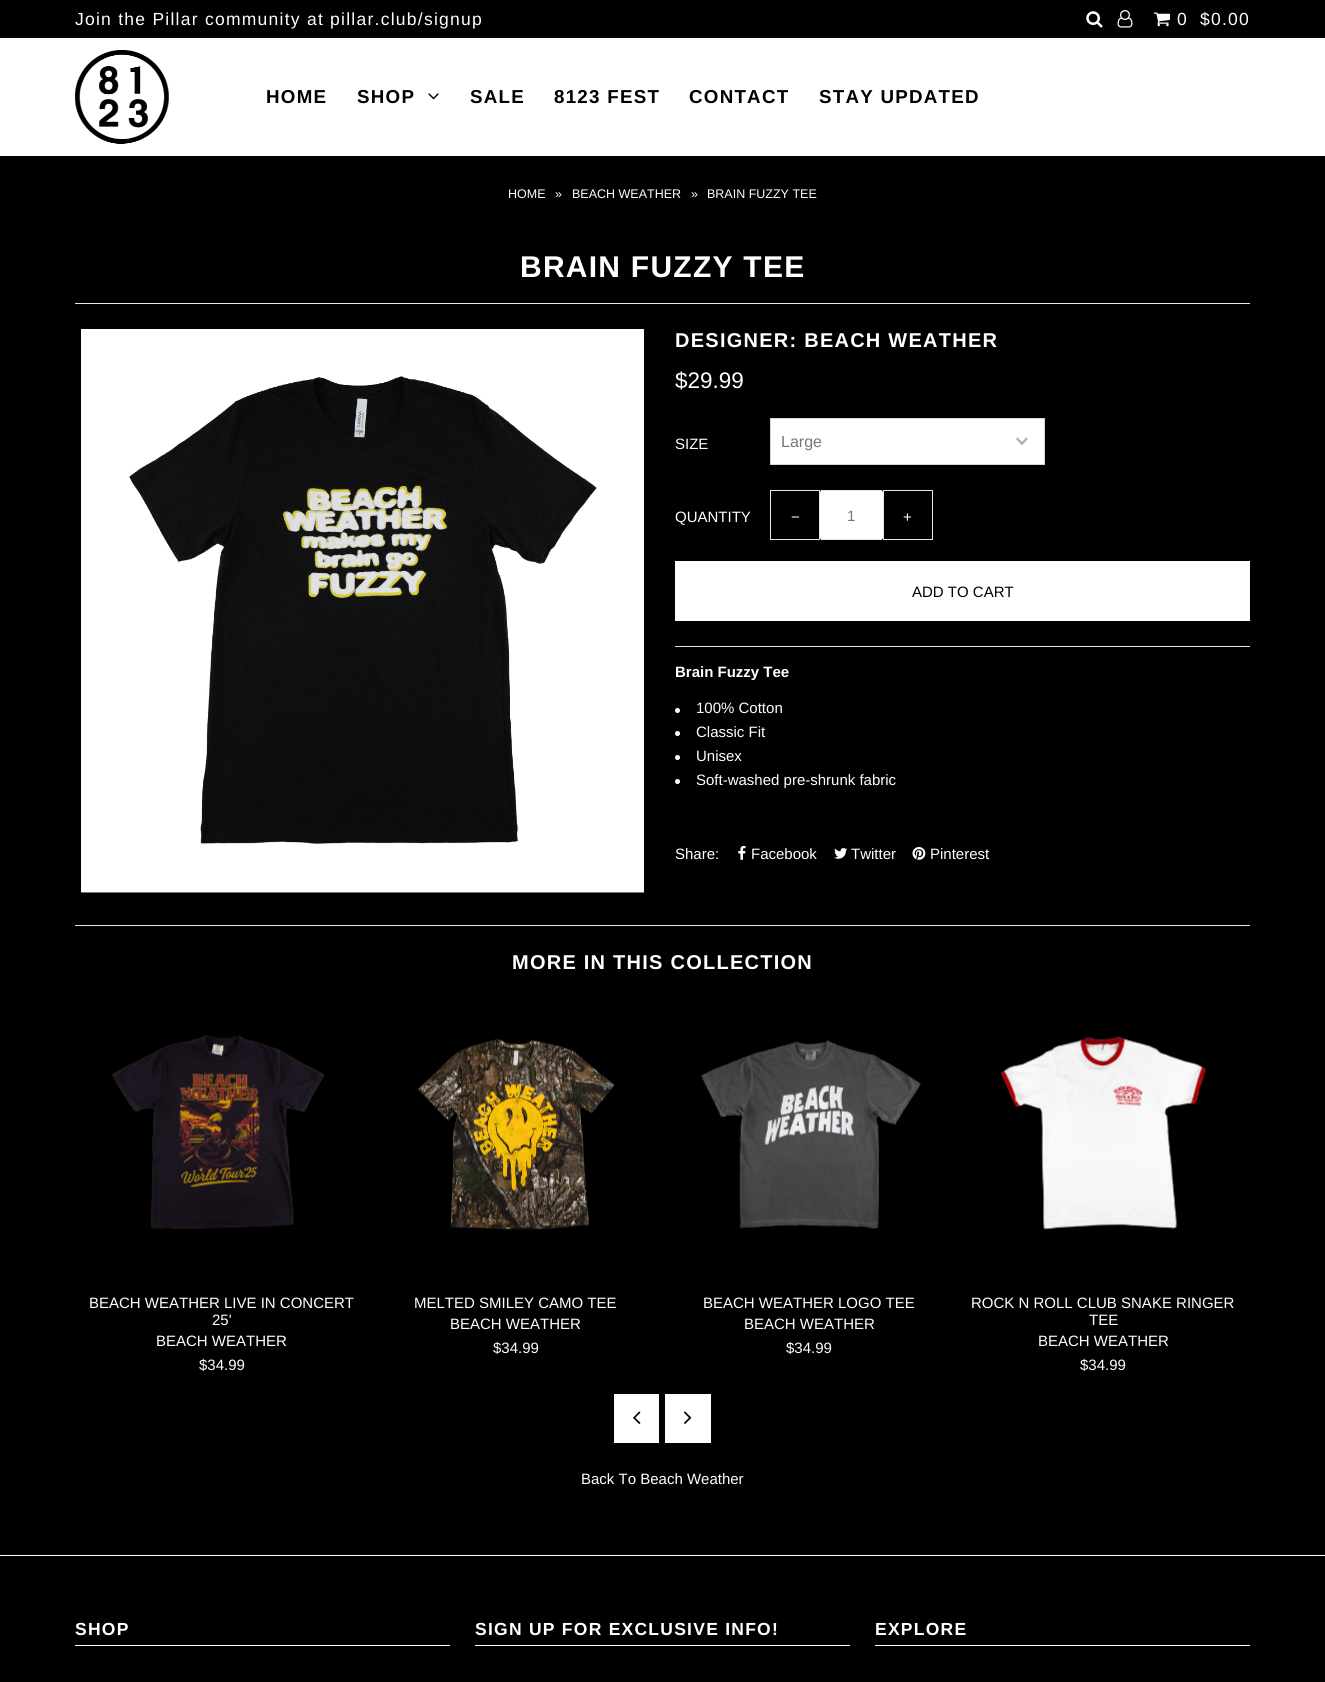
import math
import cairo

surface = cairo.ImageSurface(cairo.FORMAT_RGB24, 1325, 1682)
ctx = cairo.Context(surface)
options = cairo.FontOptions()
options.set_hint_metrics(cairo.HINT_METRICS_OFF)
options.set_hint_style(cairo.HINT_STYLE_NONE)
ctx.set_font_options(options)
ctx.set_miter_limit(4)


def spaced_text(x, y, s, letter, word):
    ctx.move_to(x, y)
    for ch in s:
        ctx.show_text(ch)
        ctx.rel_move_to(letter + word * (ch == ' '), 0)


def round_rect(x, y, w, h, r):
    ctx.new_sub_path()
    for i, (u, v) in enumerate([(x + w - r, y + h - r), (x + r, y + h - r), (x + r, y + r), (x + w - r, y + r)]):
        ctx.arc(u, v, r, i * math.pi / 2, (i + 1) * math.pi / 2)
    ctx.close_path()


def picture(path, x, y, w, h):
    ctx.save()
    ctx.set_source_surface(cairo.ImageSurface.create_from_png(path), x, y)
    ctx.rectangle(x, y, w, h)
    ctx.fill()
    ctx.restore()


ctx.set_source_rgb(0, 0, 0)
ctx.paint()
ctx.set_source_rgb(1, 1, 1)
ctx.rectangle(0, 38, 1325, 118)
ctx.fill()
ctx.select_font_face("Liberation Sans")
ctx.set_font_size(17.5)
spaced_text(75, 25, "Join the Pillar community at pillar.club/signup", 1.25, 0)
picture("img1.png", 1086, 11, 17, 17)
picture("img2.png", 1117, 10, 16, 18)
picture("img3.png", 1153, 12, 17, 15)
spaced_text(1177, 25, "0", 1.25, 0)
spaced_text(1200, 25, "$0.00", 1.25, 0)
picture("img4.png", 75, 50, 94, 94)
ctx.select_font_face("Liberation Sans", cairo.FONT_SLANT_NORMAL, cairo.FONT_WEIGHT_BOLD)
ctx.set_font_size(18.75)
ctx.set_source_rgb(0, 0, 0)
spaced_text(266, 103, "HOME", 1.25, 0)
spaced_text(357, 103, "SHOP", 1.25, 0)
picture("img5.png", 428, 93, 11, 7)
spaced_text(470, 103, "SALE", 1.25, 0)
spaced_text(554, 103, "8123 FEST", 1.25, 0)
spaced_text(689, 103, "CONTACT", 1.25, 0)
spaced_text(819, 103, "STAY UPDATED", 1.25, 0)
ctx.select_font_face("Liberation Sans")
ctx.set_font_size(12.5)
ctx.set_source_rgb(1, 1, 1)
ctx.move_to(508, 198)
ctx.show_text("HOME")
ctx.move_to(555, 198)
ctx.show_text("»")
ctx.move_to(572, 198)
ctx.show_text("BEACH WEATHER")
ctx.move_to(691, 198)
ctx.show_text("»")
ctx.move_to(707, 198)
ctx.show_text("BRAIN FUZZY TEE")
ctx.set_source_rgb(0.902, 0.902, 0.902)
ctx.rectangle(75, 303, 1175, 1)
ctx.fill()
ctx.select_font_face("Liberation Sans", cairo.FONT_SLANT_NORMAL, cairo.FONT_WEIGHT_BOLD)
ctx.set_font_size(30)
ctx.set_source_rgb(1, 1, 1)
spaced_text(520, 277, "BRAIN FUZZY TEE", 1.25, 0)
picture("img6.png", 81, 329, 563, 564)
ctx.set_font_size(20)
spaced_text(675, 347, "DESIGNER: BEACH WEATHER", 1.25, 0)
ctx.select_font_face("Liberation Sans")
ctx.set_font_size(22.5)
ctx.move_to(675, 388)
ctx.show_text("$29.99")
ctx.set_source_rgb(0.902, 0.902, 0.902)
ctx.rectangle(675, 646, 575, 1)
ctx.fill()
ctx.set_font_size(15)
ctx.set_source_rgb(1, 1, 1)
ctx.move_to(675, 449)
ctx.show_text("SIZE")
round_rect(770, 418, 275, 47, 1)
ctx.fill()
picture("img7.png", 1016, 437, 12, 9)
round_rect(770.5, 418.5, 274, 46, 0.5)
ctx.set_source_rgb(0.835, 0.835, 0.835)
ctx.set_line_width(1)
ctx.stroke()
ctx.set_font_size(16)
ctx.set_source_rgb(0.467, 0.467, 0.467)
ctx.move_to(781, 447)
ctx.show_text("Large")
ctx.set_font_size(15)
ctx.set_source_rgb(1, 1, 1)
ctx.move_to(675, 522)
ctx.show_text("QUANTITY")
ctx.rectangle(770.5, 490.5, 49, 49)
ctx.set_source_rgb(0.902, 0.902, 0.902)
ctx.stroke()
ctx.set_source_rgb(1, 1, 1)
ctx.move_to(791, 522)
ctx.show_text("−")
round_rect(820, 490, 63, 50, 2.5)
ctx.fill()
ctx.set_source_rgb(0.902, 0.902, 0.902)
ctx.rectangle(821, 490, 60, 1)
ctx.fill()
ctx.rectangle(821, 539, 60, 1)
ctx.fill()
ctx.set_source_rgb(0.467, 0.467, 0.467)
ctx.move_to(847, 521)
ctx.show_text("1")
ctx.rectangle(883.5, 490.5, 49, 49)
ctx.set_source_rgb(0.902, 0.902, 0.902)
ctx.stroke()
ctx.set_source_rgb(1, 1, 1)
ctx.move_to(903, 522)
ctx.show_text("+")
ctx.rectangle(675, 561, 575, 60)
ctx.fill()
ctx.set_source_rgb(0, 0, 0)
ctx.move_to(912, 597)
ctx.show_text("ADD TO CART")
ctx.select_font_face("Liberation Sans", cairo.FONT_SLANT_NORMAL, cairo.FONT_WEIGHT_BOLD)
ctx.set_source_rgb(1, 1, 1)
ctx.move_to(675, 677)
ctx.show_text("Brain Fuzzy Tee")
ctx.new_path()
ctx.arc(677.5, 710.5, 2.5, 0, 2 * math.pi)
ctx.fill()
ctx.select_font_face("Liberation Sans")
ctx.move_to(696, 713)
ctx.show_text("100% Cotton")
ctx.new_path()
ctx.arc(677.5, 733.5, 2.5, 0, 2 * math.pi)
ctx.fill()
ctx.move_to(696, 737)
ctx.show_text("Classic Fit")
ctx.new_path()
ctx.arc(677.5, 757.5, 2.5, 0, 2 * math.pi)
ctx.fill()
ctx.move_to(696, 761)
ctx.show_text("Unisex")
ctx.new_path()
ctx.arc(677.5, 781.5, 2.5, 0, 2 * math.pi)
ctx.fill()
ctx.move_to(696, 785)
ctx.show_text("Soft-washed pre-shrunk fabric")
ctx.move_to(675, 859)
ctx.show_text("Share:")
picture("img8.png", 738, 845, 8, 15)
ctx.move_to(751, 859)
ctx.show_text("Facebook")
picture("img9.png", 834, 848, 14, 11)
ctx.move_to(851, 859)
ctx.show_text("Twitter")
picture("img10.png", 912, 847, 14, 13)
ctx.move_to(930, 859)
ctx.show_text("Pinterest")
ctx.set_source_rgb(0.902, 0.902, 0.902)
ctx.rectangle(75, 925, 1175, 1)
ctx.fill()
ctx.select_font_face("Liberation Sans", cairo.FONT_SLANT_NORMAL, cairo.FONT_WEIGHT_BOLD)
ctx.set_font_size(20)
ctx.set_source_rgb(1, 1, 1)
spaced_text(512, 969, "MORE IN THIS COLLECTION", 1.25, 0)
picture("img11.png", 111, 1034, 214, 195)
ctx.select_font_face("Liberation Sans")
ctx.set_font_size(15)
ctx.move_to(89, 1308)
ctx.show_text("BEACH WEATHER LIVE IN CONCERT")
ctx.move_to(212, 1325)
ctx.show_text("25'")
ctx.move_to(156, 1346)
ctx.show_text("BEACH WEATHER")
ctx.move_to(199, 1370)
ctx.show_text("$34.99")
picture("img12.png", 418, 1038, 196, 192)
ctx.move_to(414, 1308)
ctx.show_text("MELTED SMILEY CAMO TEE")
ctx.move_to(450, 1329)
ctx.show_text("BEACH WEATHER")
ctx.move_to(493, 1353)
ctx.show_text("$34.99")
picture("img13.png", 701, 1040, 220, 189)
ctx.move_to(703, 1308)
ctx.show_text("BEACH WEATHER LOGO TEE")
ctx.move_to(744, 1329)
ctx.show_text("BEACH WEATHER")
ctx.move_to(786, 1353)
ctx.show_text("$34.99")
picture("img14.png", 1000, 1036, 206, 194)
ctx.move_to(971, 1308)
ctx.show_text("ROCK N ROLL CLUB SNAKE RINGER")
ctx.move_to(1089, 1325)
ctx.show_text("TEE")
ctx.move_to(1038, 1346)
ctx.show_text("BEACH WEATHER")
ctx.move_to(1080, 1370)
ctx.show_text("$34.99")
ctx.rectangle(614, 1394, 45, 49)
ctx.fill()
picture("img15.png", 633, 1411, 8, 13)
ctx.rectangle(665, 1394, 46, 49)
ctx.fill()
picture("img16.png", 684, 1411, 8, 13)
ctx.move_to(581, 1484)
ctx.show_text("Back To Beach Weather")
ctx.rectangle(0, 1555, 1325, 1)
ctx.fill()
ctx.rectangle(75, 1645, 375, 1)
ctx.fill()
ctx.select_font_face("Liberation Sans", cairo.FONT_SLANT_NORMAL, cairo.FONT_WEIGHT_BOLD)
ctx.set_font_size(17.5)
spaced_text(75, 1635, "SHOP", 1.25, 0)
ctx.rectangle(475, 1645, 375, 1)
ctx.fill()
spaced_text(475, 1635, "SIGN UP FOR EXCLUSIVE INFO!", 1.25, 0)
ctx.rectangle(875, 1645, 375, 1)
ctx.fill()
spaced_text(875, 1635, "EXPLORE", 1.25, 0)
surface.write_to_png("page.png")
